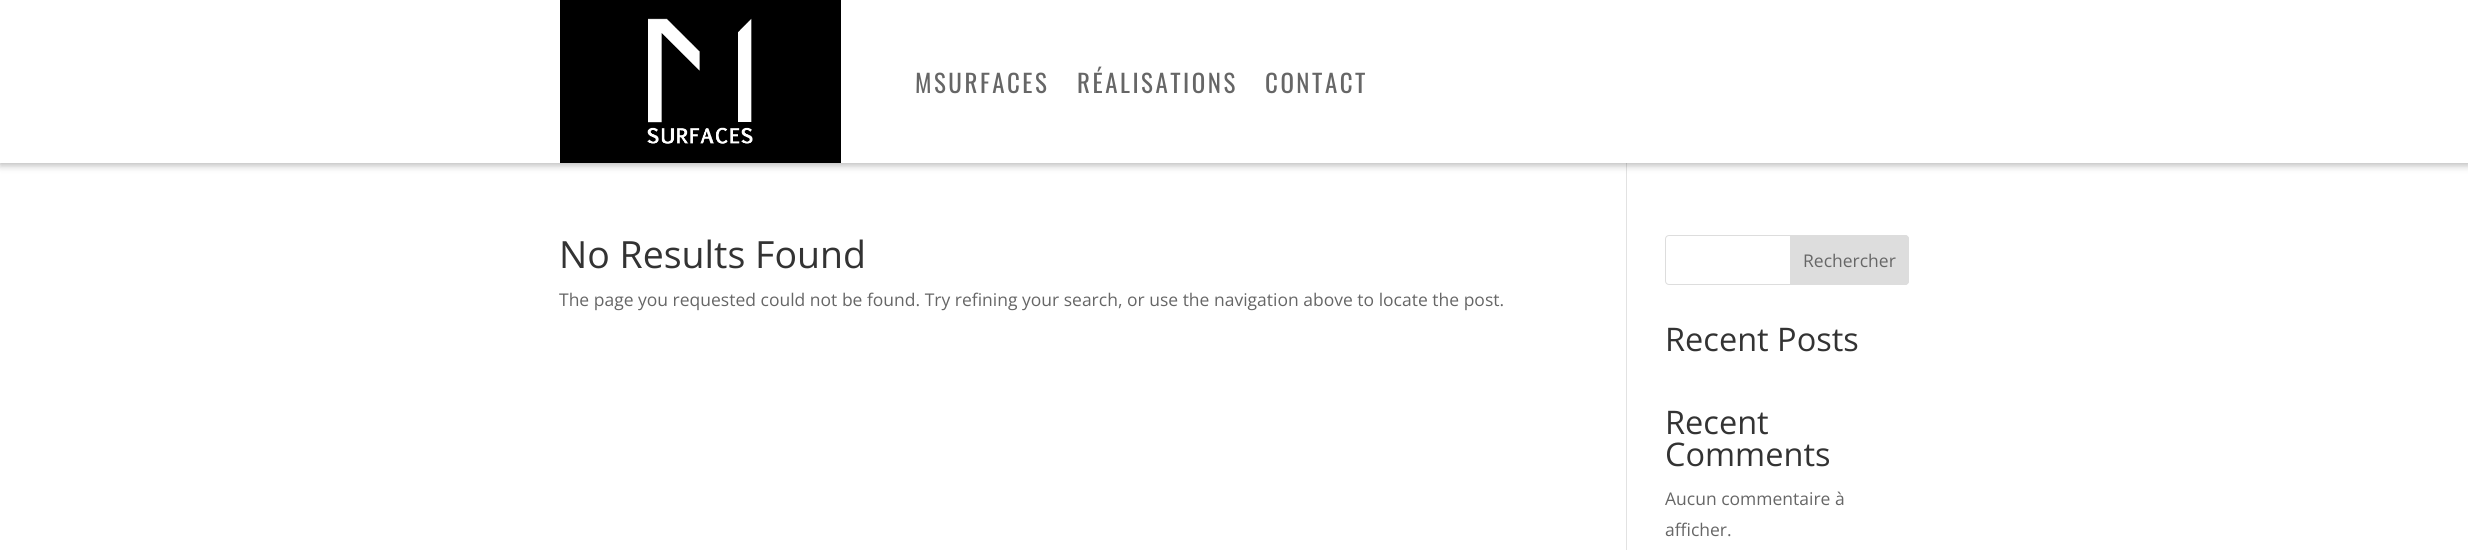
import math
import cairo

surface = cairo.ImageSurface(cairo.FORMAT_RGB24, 2468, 550)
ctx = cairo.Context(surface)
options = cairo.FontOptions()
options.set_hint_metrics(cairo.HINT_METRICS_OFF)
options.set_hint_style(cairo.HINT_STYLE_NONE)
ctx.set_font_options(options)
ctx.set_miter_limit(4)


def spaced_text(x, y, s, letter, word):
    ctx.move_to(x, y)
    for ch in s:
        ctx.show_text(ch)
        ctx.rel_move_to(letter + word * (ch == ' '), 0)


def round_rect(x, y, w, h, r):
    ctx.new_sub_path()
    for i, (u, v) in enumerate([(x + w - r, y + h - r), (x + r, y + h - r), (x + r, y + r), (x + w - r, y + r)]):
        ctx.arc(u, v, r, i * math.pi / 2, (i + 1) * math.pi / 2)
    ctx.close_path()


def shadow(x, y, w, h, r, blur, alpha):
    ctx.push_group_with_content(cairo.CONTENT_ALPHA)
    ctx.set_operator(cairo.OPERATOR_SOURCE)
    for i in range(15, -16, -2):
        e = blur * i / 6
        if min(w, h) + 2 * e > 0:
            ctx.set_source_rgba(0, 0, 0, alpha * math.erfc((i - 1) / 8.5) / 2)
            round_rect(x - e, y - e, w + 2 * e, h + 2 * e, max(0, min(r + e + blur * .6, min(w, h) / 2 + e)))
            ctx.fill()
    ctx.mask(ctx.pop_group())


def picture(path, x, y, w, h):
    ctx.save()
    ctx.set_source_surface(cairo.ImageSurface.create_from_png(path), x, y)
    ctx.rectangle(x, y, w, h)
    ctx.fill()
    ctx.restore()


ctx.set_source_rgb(1, 1, 1)
ctx.paint()
ctx.set_source_rgb(0.886, 0.886, 0.886)
ctx.rectangle(1626, 163, 1, 387)
ctx.fill()
ctx.set_source_rgb(0, 0, 0)
shadow(0, 3, 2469, 162, 0, 4, 0.3)
ctx.set_source_rgb(1, 1, 1)
ctx.rectangle(0, 0, 2468, 163)
ctx.fill()
ctx.set_source_rgb(0, 0, 0)
ctx.rectangle(560, 0, 281, 163)
ctx.fill()
picture("img1.png", 647, 18, 106, 126)
ctx.select_font_face("Oswald")
ctx.set_font_size(25)
ctx.set_source_rgb(0.4, 0.4, 0.4)
spaced_text(915, 93, "MSURFACES", 2.5, 0)
spaced_text(1077, 93, "RÉALISATIONS", 2.5, 0)
spaced_text(1265, 93, "CONTACT", 2.5, 0)
ctx.select_font_face("Open Sans")
ctx.set_font_size(37.5)
ctx.set_source_rgb(0.2, 0.2, 0.2)
ctx.move_to(559, 268)
ctx.show_text("No Results Found")
ctx.set_font_size(17.5)
ctx.set_source_rgb(0.4, 0.4, 0.4)
ctx.move_to(559, 306)
ctx.show_text("The page you requested could not be found. Try refining your search, or use the navigation above to locate the post.")
round_rect(1665.5, 235.5, 243, 49, 3.5)
ctx.set_source_rgb(0.867, 0.867, 0.867)
ctx.set_line_width(1)
ctx.stroke()
ctx.new_path()
ctx.move_to(1790.5, 235.5)
ctx.line_to(1905, 235.5)
ctx.curve_to(1907, 235.5, 1908.5, 237, 1908.5, 239)
ctx.line_to(1908.5, 281)
ctx.curve_to(1908.5, 283, 1907, 284.5, 1905, 284.5)
ctx.line_to(1790.5, 284.5)
ctx.close_path()
ctx.fill_preserve()
ctx.stroke()
ctx.set_source_rgb(0.4, 0.4, 0.4)
ctx.move_to(1803, 267)
ctx.show_text("Rechercher")
ctx.set_font_size(32.5)
ctx.set_source_rgb(0.2, 0.2, 0.2)
ctx.move_to(1665, 351)
ctx.show_text("Recent Posts")
ctx.move_to(1665, 434)
ctx.show_text("Recent")
ctx.move_to(1665, 466)
ctx.show_text("Comments")
ctx.set_font_size(17.5)
ctx.set_source_rgb(0.4, 0.4, 0.4)
ctx.move_to(1665, 505)
ctx.show_text("Aucun commentaire à")
ctx.move_to(1665, 536)
ctx.show_text("afficher.")
surface.write_to_png("page.png")
